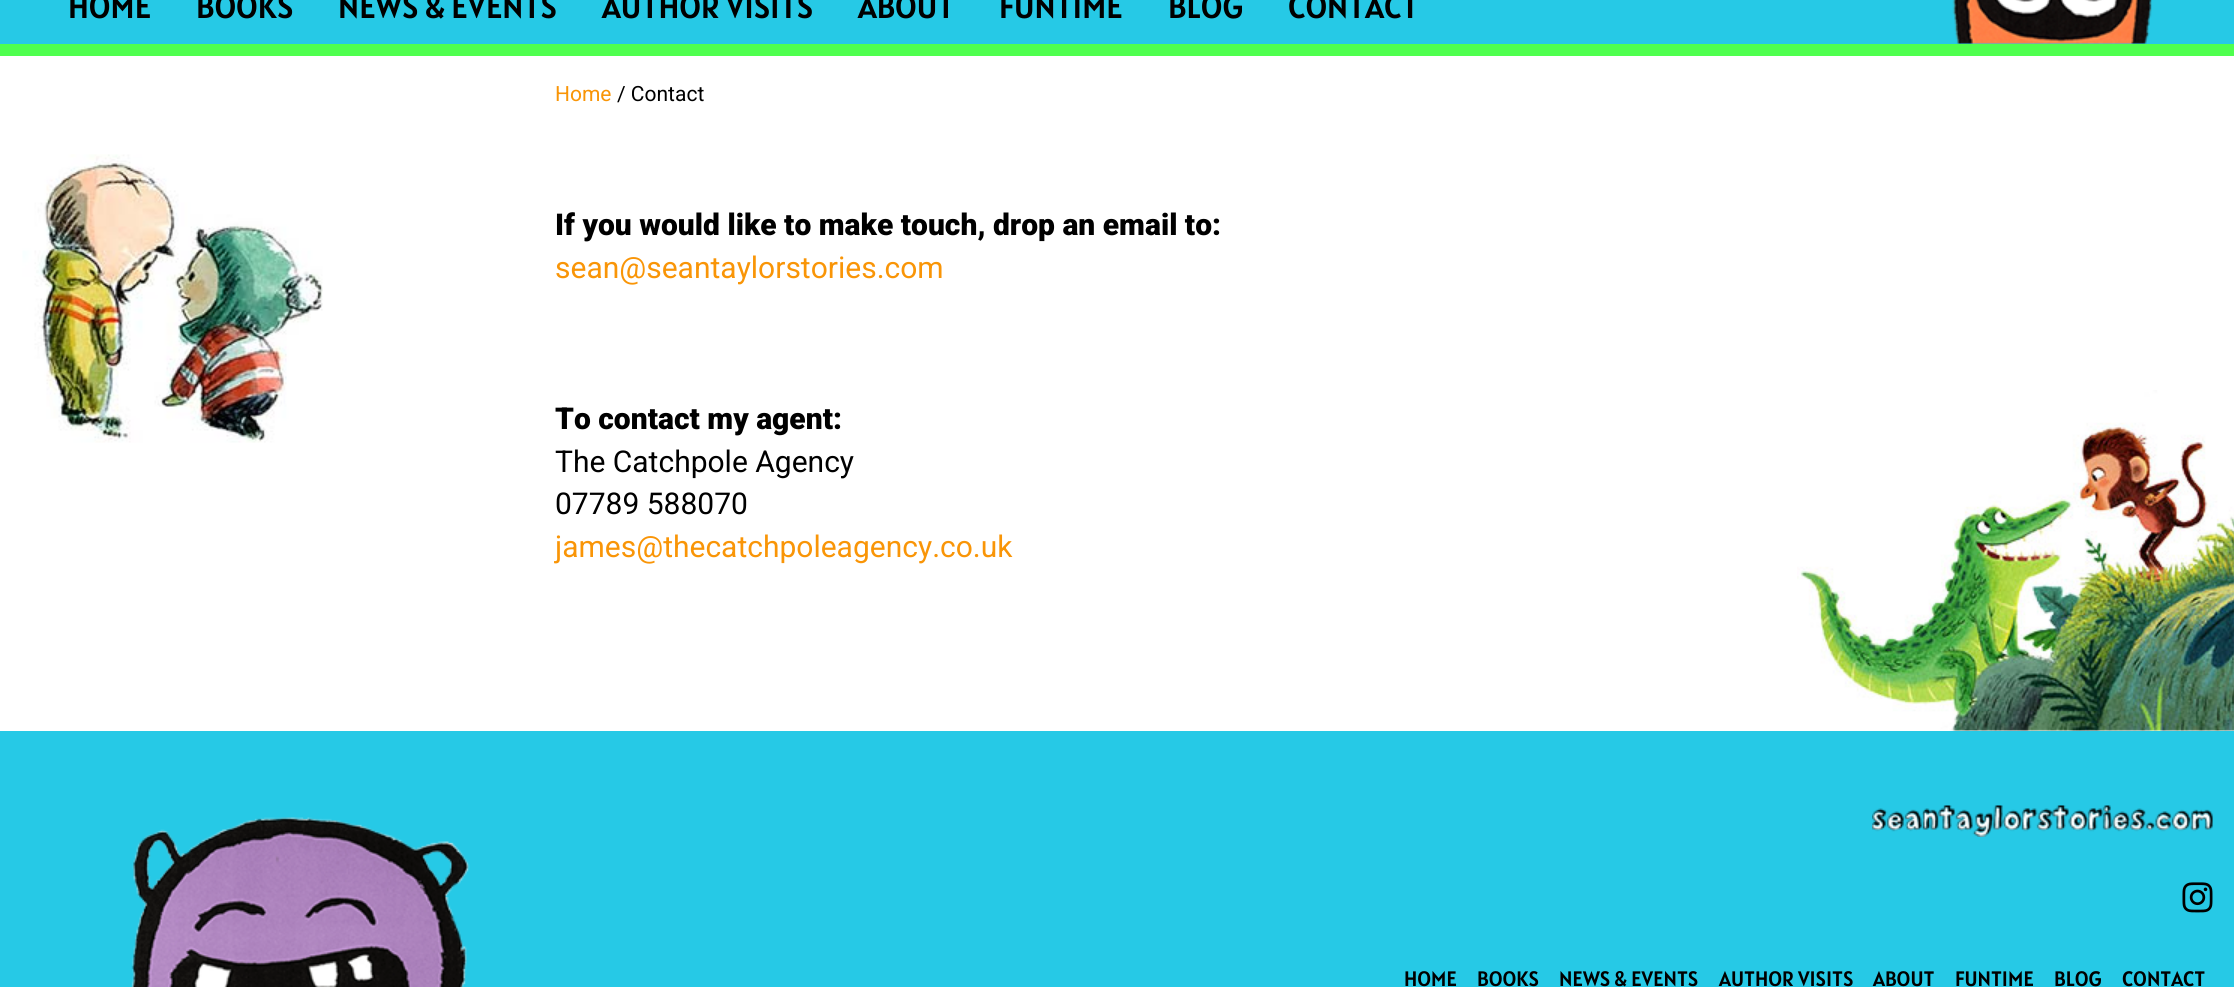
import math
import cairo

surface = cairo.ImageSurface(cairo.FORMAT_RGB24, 2234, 987)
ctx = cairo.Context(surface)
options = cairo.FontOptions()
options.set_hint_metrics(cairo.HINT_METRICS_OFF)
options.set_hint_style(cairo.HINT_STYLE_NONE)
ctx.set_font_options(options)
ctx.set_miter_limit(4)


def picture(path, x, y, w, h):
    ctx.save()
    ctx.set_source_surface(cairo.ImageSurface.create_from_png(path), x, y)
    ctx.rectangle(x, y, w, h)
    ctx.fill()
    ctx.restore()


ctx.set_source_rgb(1, 1, 1)
ctx.paint()
ctx.set_source_rgb(0.149, 0.788, 0.902)
ctx.rectangle(0, 0, 2234, 44)
ctx.fill()
picture("img1.png", 1952, 0, 200, 44)
ctx.select_font_face("Alatsi")
ctx.set_font_size(33)
ctx.set_source_rgb(0, 0, 0)
ctx.move_to(68, 18)
ctx.show_text("HOME")
ctx.move_to(196, 18)
ctx.show_text("BOOKS")
ctx.move_to(338, 18)
ctx.show_text("NEWS & EVENTS")
ctx.move_to(602, 18)
ctx.show_text("AUTHOR VISITS")
ctx.move_to(858, 18)
ctx.show_text("ABOUT")
ctx.move_to(999, 18)
ctx.show_text("FUNTIME")
ctx.move_to(1168, 18)
ctx.show_text("BLOG")
ctx.move_to(1288, 18)
ctx.show_text("CONTACT")
ctx.set_source_rgb(0.306, 1, 0.306)
ctx.rectangle(0, 44, 2234, 12)
ctx.fill()
picture("img2.png", 22, 154, 301, 289)
picture("img3.png", 1797, 390, 437, 341)
ctx.select_font_face("Roboto")
ctx.set_font_size(21)
ctx.set_source_rgb(0.973, 0.584, 0.031)
ctx.move_to(555, 101)
ctx.show_text("Home")
ctx.set_source_rgb(0, 0, 0)
ctx.move_to(617, 101)
ctx.show_text("/ Contact")
ctx.select_font_face("Roboto Black")
ctx.set_font_size(30)
ctx.move_to(555, 235)
ctx.show_text("If you would like to make touch, drop an email to:")
ctx.select_font_face("Roboto")
ctx.set_source_rgb(0.973, 0.584, 0.031)
ctx.move_to(555, 278)
ctx.show_text("sean@seantaylorstories.com")
ctx.select_font_face("Roboto Black")
ctx.set_source_rgb(0, 0, 0)
ctx.move_to(555, 429)
ctx.show_text("To contact my agent:")
ctx.select_font_face("Roboto")
ctx.move_to(555, 472)
ctx.show_text("The Catchpole Agency")
ctx.move_to(555, 514)
ctx.show_text("07789 588070")
ctx.set_source_rgb(0.973, 0.584, 0.031)
ctx.move_to(555, 557)
ctx.show_text("james@thecatchpoleagency.co.uk")
ctx.set_source_rgb(0.149, 0.788, 0.902)
ctx.rectangle(0, 731, 2234, 256)
ctx.fill()
picture("img4.png", 131, 817, 339, 170)
picture("img5.png", 1872, 805, 341, 32)
picture("img6.png", 2182, 882, 31, 31)
ctx.select_font_face("Alatsi")
ctx.set_font_size(21)
ctx.set_source_rgb(0, 0, 0)
ctx.move_to(1404, 986)
ctx.show_text("HOME")
ctx.move_to(1477, 986)
ctx.show_text("BOOKS")
ctx.move_to(1559, 986)
ctx.show_text("NEWS & EVENTS")
ctx.move_to(1719, 986)
ctx.show_text("AUTHOR VISITS")
ctx.move_to(1873, 986)
ctx.show_text("ABOUT")
ctx.move_to(1955, 986)
ctx.show_text("FUNTIME")
ctx.move_to(2054, 986)
ctx.show_text("BLOG")
ctx.move_to(2122, 986)
ctx.show_text("CONTACT")
surface.write_to_png("page.png")
